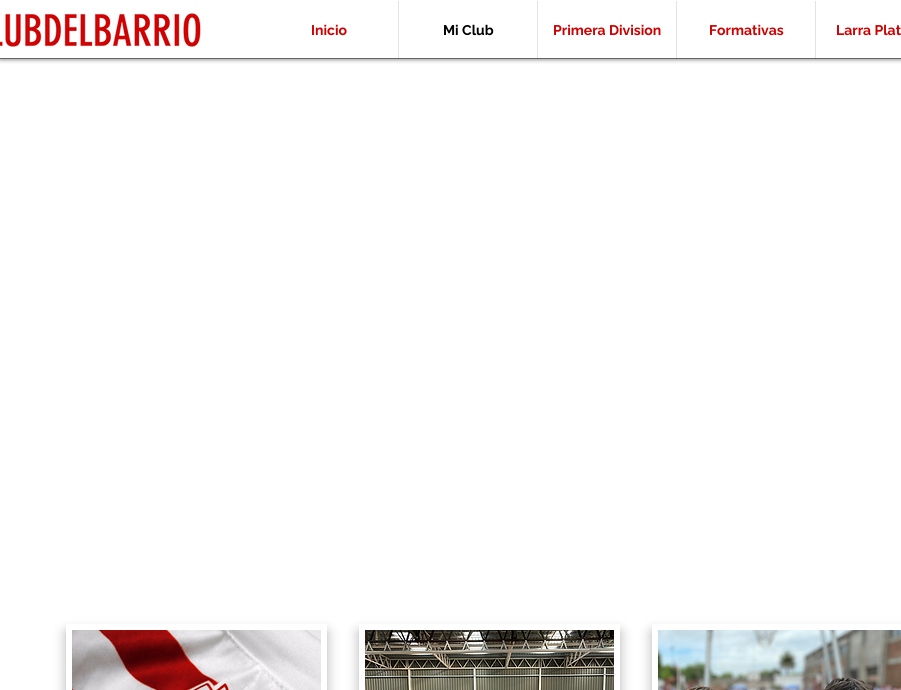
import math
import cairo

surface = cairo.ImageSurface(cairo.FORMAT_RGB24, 901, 690)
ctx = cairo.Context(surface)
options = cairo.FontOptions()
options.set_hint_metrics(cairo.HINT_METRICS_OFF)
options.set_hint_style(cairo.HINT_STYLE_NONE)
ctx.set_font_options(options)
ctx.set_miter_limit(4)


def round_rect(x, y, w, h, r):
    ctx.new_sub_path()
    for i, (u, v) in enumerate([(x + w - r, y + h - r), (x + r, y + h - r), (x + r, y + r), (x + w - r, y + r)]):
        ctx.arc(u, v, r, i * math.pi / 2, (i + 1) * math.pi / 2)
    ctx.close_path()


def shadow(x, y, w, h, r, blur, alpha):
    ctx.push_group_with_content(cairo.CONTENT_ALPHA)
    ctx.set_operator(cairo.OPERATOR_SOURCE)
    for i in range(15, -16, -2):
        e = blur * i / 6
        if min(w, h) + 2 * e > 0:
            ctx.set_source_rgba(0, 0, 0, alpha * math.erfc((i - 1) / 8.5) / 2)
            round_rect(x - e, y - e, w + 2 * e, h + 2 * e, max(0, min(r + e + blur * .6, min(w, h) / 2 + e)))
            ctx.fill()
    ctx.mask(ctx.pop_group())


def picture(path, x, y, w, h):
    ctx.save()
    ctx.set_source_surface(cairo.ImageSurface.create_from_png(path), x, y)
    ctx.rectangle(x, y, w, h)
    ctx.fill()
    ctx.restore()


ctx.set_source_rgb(1, 1, 1)
ctx.paint()
ctx.set_source_rgb(0.89, 0.89, 0.89)
ctx.rectangle(815, 1, 1, 58)
ctx.fill()
ctx.rectangle(676, 1, 1, 58)
ctx.fill()
ctx.rectangle(537, 1, 1, 58)
ctx.fill()
ctx.rectangle(398, 1, 1, 58)
ctx.fill()
ctx.save()
ctx.rectangle(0, 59, 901, 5)
ctx.clip()
ctx.set_source_rgb(0, 0, 0)
shadow(0, 0, 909, 59, 0, 2.5, 0.6)
ctx.restore()
ctx.set_source_rgb(0.4, 0.4, 0.4)
ctx.rectangle(0, 58, 901, 1)
ctx.fill()
ctx.set_source_rgb(0.357, 0.357, 0.357)
ctx.rectangle(815, 58, 1, 1)
ctx.fill()
ctx.rectangle(676, 58, 1, 1)
ctx.fill()
ctx.rectangle(537, 58, 1, 1)
ctx.fill()
ctx.rectangle(398, 58, 1, 1)
ctx.fill()
picture("img1.png", 0, 13, 201, 34)
ctx.select_font_face("Raleway", cairo.FONT_SLANT_NORMAL, cairo.FONT_WEIGHT_BOLD)
ctx.set_font_size(14)
ctx.set_source_rgb(0.812, 0, 0)
ctx.move_to(311, 35)
ctx.show_text("Inicio")
ctx.set_source_rgb(0, 0, 0)
ctx.move_to(443, 35)
ctx.show_text("Mi Club")
ctx.set_source_rgb(0.812, 0, 0)
ctx.move_to(553, 35)
ctx.show_text("Primera Division")
ctx.move_to(709, 35)
ctx.show_text("Formativas")
ctx.move_to(836, 35)
ctx.show_text("Larra Plat")
ctx.save()
ctx.set_fill_rule(cairo.FILL_RULE_EVEN_ODD)
ctx.new_path()
ctx.move_to(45, 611)
ctx.line_to(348, 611)
ctx.line_to(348, 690)
ctx.line_to(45, 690)
ctx.close_path()
ctx.move_to(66, 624)
ctx.line_to(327, 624)
ctx.line_to(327, 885)
ctx.line_to(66, 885)
ctx.close_path()
ctx.clip()
ctx.set_source_rgb(0, 0, 0)
shadow(66, 632, 261, 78, 0, 6.5, 0.29)
ctx.restore()
picture("img2.png", 72, 630, 249, 60)
ctx.save()
ctx.set_fill_rule(cairo.FILL_RULE_EVEN_ODD)
ctx.new_path()
ctx.move_to(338, 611)
ctx.line_to(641, 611)
ctx.line_to(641, 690)
ctx.line_to(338, 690)
ctx.close_path()
ctx.move_to(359, 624)
ctx.line_to(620, 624)
ctx.line_to(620, 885)
ctx.line_to(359, 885)
ctx.close_path()
ctx.clip()
ctx.set_source_rgb(0, 0, 0)
shadow(359, 632, 261, 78, 0, 6.5, 0.29)
ctx.restore()
picture("img3.png", 365, 630, 249, 60)
ctx.save()
ctx.set_fill_rule(cairo.FILL_RULE_EVEN_ODD)
ctx.new_path()
ctx.move_to(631, 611)
ctx.line_to(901, 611)
ctx.line_to(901, 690)
ctx.line_to(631, 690)
ctx.close_path()
ctx.move_to(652, 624)
ctx.line_to(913, 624)
ctx.line_to(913, 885)
ctx.line_to(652, 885)
ctx.close_path()
ctx.clip()
ctx.set_source_rgb(0, 0, 0)
shadow(652, 632, 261, 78, 0, 6.5, 0.29)
ctx.restore()
picture("img4.png", 658, 630, 243, 60)
surface.write_to_png("page.png")
